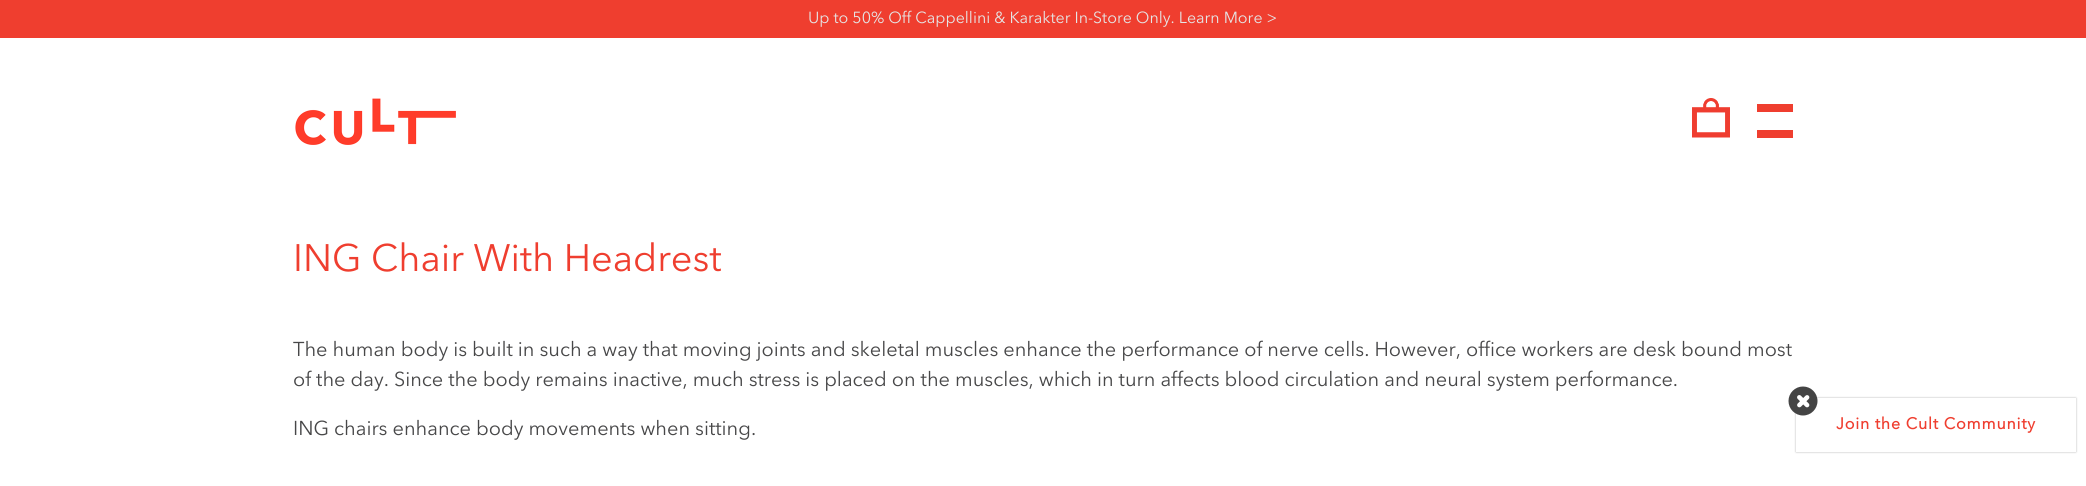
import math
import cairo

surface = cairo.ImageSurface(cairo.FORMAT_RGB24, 2086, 486)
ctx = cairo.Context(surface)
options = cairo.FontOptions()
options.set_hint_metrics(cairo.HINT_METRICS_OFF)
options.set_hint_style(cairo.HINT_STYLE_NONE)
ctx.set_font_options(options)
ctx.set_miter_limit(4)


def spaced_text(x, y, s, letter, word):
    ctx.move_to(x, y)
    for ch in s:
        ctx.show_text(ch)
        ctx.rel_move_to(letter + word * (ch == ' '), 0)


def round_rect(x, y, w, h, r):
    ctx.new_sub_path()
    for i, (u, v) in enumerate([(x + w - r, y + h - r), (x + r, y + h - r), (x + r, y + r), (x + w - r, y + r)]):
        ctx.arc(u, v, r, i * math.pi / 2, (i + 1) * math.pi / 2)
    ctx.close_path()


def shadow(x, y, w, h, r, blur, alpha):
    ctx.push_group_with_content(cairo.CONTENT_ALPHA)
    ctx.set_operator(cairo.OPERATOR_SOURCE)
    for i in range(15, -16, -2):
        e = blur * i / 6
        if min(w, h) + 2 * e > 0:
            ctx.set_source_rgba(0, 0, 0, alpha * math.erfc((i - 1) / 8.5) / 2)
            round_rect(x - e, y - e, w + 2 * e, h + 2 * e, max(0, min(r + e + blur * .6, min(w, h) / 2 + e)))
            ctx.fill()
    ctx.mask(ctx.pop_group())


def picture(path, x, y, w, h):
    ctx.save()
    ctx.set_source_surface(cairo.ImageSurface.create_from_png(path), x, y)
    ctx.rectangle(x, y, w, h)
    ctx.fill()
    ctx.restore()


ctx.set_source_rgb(1, 1, 1)
ctx.paint()
ctx.set_source_rgb(0.937, 0.243, 0.184)
ctx.rectangle(0, 0, 2086, 38)
ctx.fill()
ctx.select_font_face("Avenir Next")
ctx.set_font_size(16)
ctx.set_source_rgb(0.898, 0.898, 0.898)
ctx.move_to(808, 23)
ctx.show_text("Up to 50% Off Cappellini & Karakter In-Store Only. Learn More >")
picture("img1.png", 295, 98, 161, 47)
picture("img2.png", 1692, 98, 38, 40)
ctx.set_source_rgb(0.937, 0.243, 0.184)
ctx.rectangle(1757, 104, 36, 8)
ctx.fill()
ctx.rectangle(1757, 130, 36, 8)
ctx.fill()
ctx.set_font_size(38)
ctx.move_to(293, 271)
ctx.show_text("ING Chair With Headrest")
ctx.set_font_size(20)
ctx.set_source_rgb(0.278, 0.278, 0.282)
ctx.move_to(293, 356)
ctx.show_text("The human body is built in such a way that moving joints and skeletal muscles enhance the performance of nerve cells. However, office workers are desk bound most")
ctx.move_to(293, 386)
ctx.show_text("of the day. Since the body remains inactive, much stress is placed on the muscles, which in turn affects blood circulation and neural system performance.")
ctx.move_to(293, 435)
ctx.show_text("ING chairs enhance body movements when sitting.")
ctx.save()
ctx.set_fill_rule(cairo.FILL_RULE_EVEN_ODD)
ctx.new_path()
ctx.move_to(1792, 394)
ctx.line_to(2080, 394)
ctx.line_to(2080, 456)
ctx.line_to(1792, 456)
ctx.close_path()
ctx.move_to(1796, 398)
ctx.line_to(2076, 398)
ctx.line_to(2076, 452)
ctx.line_to(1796, 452)
ctx.close_path()
ctx.clip()
ctx.set_source_rgb(0, 0, 0)
shadow(1796, 398, 280, 54, 0, 1, 0.3)
ctx.restore()
picture("img3.png", 1788, 386, 30, 30)
ctx.select_font_face("Avenir Next", cairo.FONT_SLANT_NORMAL, cairo.FONT_WEIGHT_BOLD)
ctx.set_font_size(16)
ctx.set_source_rgb(0.937, 0.243, 0.184)
spaced_text(1836, 429, "Join the Cult Community", 0.8, 0)
surface.write_to_png("page.png")
